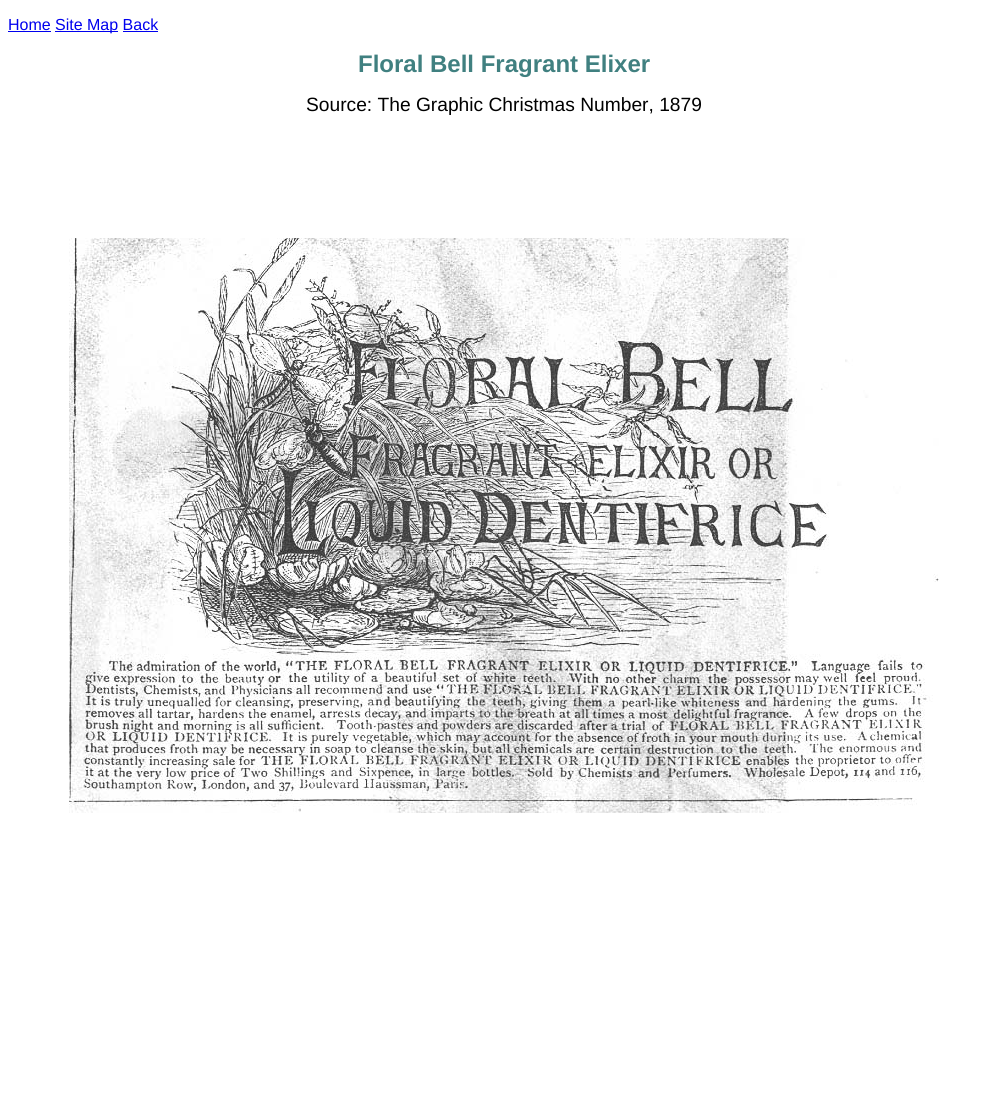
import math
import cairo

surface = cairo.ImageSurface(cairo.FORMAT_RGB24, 1008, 1113)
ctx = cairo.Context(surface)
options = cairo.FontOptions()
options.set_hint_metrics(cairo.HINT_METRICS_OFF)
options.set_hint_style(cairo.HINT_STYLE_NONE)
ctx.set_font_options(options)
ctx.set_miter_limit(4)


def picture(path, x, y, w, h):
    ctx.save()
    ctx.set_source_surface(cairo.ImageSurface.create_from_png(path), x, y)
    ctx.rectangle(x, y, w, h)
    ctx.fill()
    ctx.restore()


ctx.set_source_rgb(1, 1, 1)
ctx.paint()
ctx.select_font_face("Liberation Sans")
ctx.set_font_size(16)
ctx.set_source_rgb(0, 0, 0.933)
ctx.move_to(8, 30)
ctx.show_text("Home")
ctx.rectangle(8, 31, 43, 1)
ctx.fill()
ctx.rectangle(55, 31, 63, 1)
ctx.fill()
ctx.move_to(55, 30)
ctx.show_text("Site Map Back")
ctx.rectangle(123, 31, 35, 1)
ctx.fill()
ctx.select_font_face("Liberation Sans", cairo.FONT_SLANT_NORMAL, cairo.FONT_WEIGHT_BOLD)
ctx.set_font_size(24)
ctx.set_source_rgb(0.251, 0.502, 0.502)
ctx.move_to(358, 72)
ctx.show_text("Floral Bell Fragrant Elixer")
ctx.select_font_face("Liberation Sans")
ctx.set_font_size(19.2)
ctx.set_source_rgb(0, 0, 0)
ctx.move_to(306, 111)
ctx.show_text("Source: The Graphic Christmas Number, 1879")
picture("img1.png", 69, 238, 870, 575)
surface.write_to_png("page.png")
